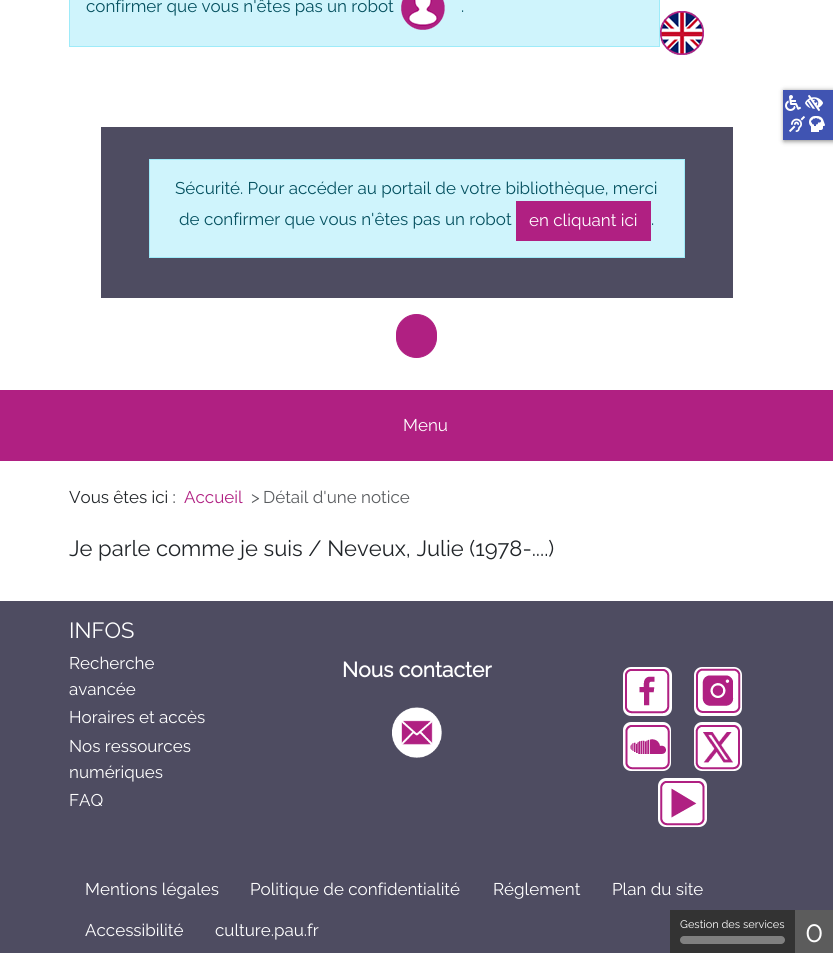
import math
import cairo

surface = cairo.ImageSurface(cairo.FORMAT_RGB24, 833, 953)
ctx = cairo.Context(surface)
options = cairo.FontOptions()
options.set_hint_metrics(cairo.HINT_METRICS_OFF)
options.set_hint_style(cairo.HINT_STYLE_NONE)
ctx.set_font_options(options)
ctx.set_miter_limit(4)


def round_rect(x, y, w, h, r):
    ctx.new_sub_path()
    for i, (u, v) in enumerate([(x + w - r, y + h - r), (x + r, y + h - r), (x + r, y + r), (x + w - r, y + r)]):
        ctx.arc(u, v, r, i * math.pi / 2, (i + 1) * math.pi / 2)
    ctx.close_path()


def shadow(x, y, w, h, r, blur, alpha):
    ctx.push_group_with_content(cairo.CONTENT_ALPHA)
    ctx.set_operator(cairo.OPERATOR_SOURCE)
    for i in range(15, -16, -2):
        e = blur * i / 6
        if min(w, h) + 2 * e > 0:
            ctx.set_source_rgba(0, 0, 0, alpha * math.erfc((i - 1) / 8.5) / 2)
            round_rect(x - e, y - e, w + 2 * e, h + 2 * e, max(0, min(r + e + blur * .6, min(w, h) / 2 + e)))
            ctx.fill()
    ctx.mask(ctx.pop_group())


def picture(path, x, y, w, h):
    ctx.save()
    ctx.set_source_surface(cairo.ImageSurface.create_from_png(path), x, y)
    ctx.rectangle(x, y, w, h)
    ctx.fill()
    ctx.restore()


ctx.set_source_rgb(1, 1, 1)
ctx.paint()
ctx.set_source_rgb(0.812, 0.957, 0.988)
ctx.rectangle(69.5, -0.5, 590, 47)
ctx.fill_preserve()
ctx.set_source_rgb(0.62, 0.918, 0.976)
ctx.set_line_width(1)
ctx.stroke()
ctx.select_font_face("Raleway")
ctx.set_font_size(17)
ctx.set_source_rgb(0.02, 0.318, 0.376)
ctx.move_to(86, 12)
ctx.show_text("confirmer que vous n'êtes pas un robot")
picture("img1.png", 401, 0, 44, 30)
ctx.move_to(461, 12)
ctx.show_text(".")
picture("img2.png", 660, 11, 44, 44)
ctx.set_source_rgb(0, 0, 0)
shadow(784, 91, 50, 50, 0, 2.5, 0.5)
ctx.set_source_rgb(0.251, 0.329, 0.698)
ctx.rectangle(783, 90, 50, 50)
ctx.fill()
picture("img3.png", 785, 95, 16, 16)
picture("img4.png", 805, 95, 18, 16)
picture("img5.png", 789, 116, 16, 16)
picture("img6.png", 809, 116, 16, 16)
ctx.set_source_rgb(0.306, 0.298, 0.38)
ctx.rectangle(101, 127, 632, 171)
ctx.fill()
ctx.set_source_rgb(0.812, 0.957, 0.988)
ctx.rectangle(149.5, 159.5, 535, 98)
ctx.fill_preserve()
ctx.set_source_rgb(0.62, 0.918, 0.976)
ctx.stroke()
ctx.set_source_rgb(0.02, 0.318, 0.376)
ctx.move_to(175, 194)
ctx.show_text("Sécurité. Pour accéder au portail de votre bibliothèque, merci")
ctx.move_to(179, 225)
ctx.show_text("de confirmer que vous n'êtes pas un robot")
ctx.set_source_rgb(0.69, 0.125, 0.51)
ctx.rectangle(516, 201, 135, 40)
ctx.fill()
ctx.set_source_rgb(1, 1, 1)
ctx.move_to(529, 226)
ctx.show_text("en cliquant ici")
ctx.set_source_rgb(0.02, 0.318, 0.376)
ctx.move_to(651, 225)
ctx.show_text(".")
ctx.set_source_rgb(0.69, 0.125, 0.51)
round_rect(396.5, 314.5, 40, 43, 20)
ctx.fill_preserve()
ctx.stroke()
ctx.rectangle(0, 390, 833, 71)
ctx.fill()
ctx.set_source_rgb(1, 1, 1)
ctx.move_to(403, 431)
ctx.show_text("Menu")
ctx.set_source_rgb(0.129, 0.145, 0.161)
ctx.move_to(69, 503)
ctx.show_text("Vous êtes ici :")
ctx.set_source_rgb(0.69, 0.125, 0.51)
ctx.move_to(184, 503)
ctx.show_text("Accueil")
ctx.set_source_rgb(0.349, 0.361, 0.373)
ctx.move_to(251, 503)
ctx.show_text(">")
ctx.move_to(263, 503)
ctx.show_text("Détail d'une notice")
ctx.set_font_size(22)
ctx.set_source_rgb(0.129, 0.145, 0.161)
ctx.move_to(69, 556)
ctx.show_text("Je parle comme je suis / Neveux, Julie (1978-....)")
ctx.set_source_rgb(0.306, 0.298, 0.38)
ctx.rectangle(0, 601, 833, 352)
ctx.fill()
ctx.set_source_rgb(1, 1, 1)
ctx.move_to(69, 638)
ctx.show_text("INFOS")
ctx.set_font_size(17)
ctx.move_to(69, 669)
ctx.show_text("Recherche")
ctx.move_to(69, 695)
ctx.show_text("avancée")
ctx.move_to(69, 723)
ctx.show_text("Horaires et accès")
ctx.move_to(69, 752)
ctx.show_text("Nos ressources")
ctx.move_to(69, 778)
ctx.show_text("numériques")
ctx.move_to(69, 806)
ctx.show_text("FAQ")
ctx.select_font_face("Raleway", cairo.FONT_SLANT_NORMAL, cairo.FONT_WEIGHT_BOLD)
ctx.set_font_size(21)
ctx.move_to(342, 677)
ctx.show_text("Nous contacter")
picture("img7.png", 392, 707, 50, 51)
round_rect(623, 667, 49, 49, 8)
ctx.fill()
picture("img8.png", 625, 669, 45, 45)
round_rect(694, 667, 48, 49, 8)
ctx.fill()
picture("img9.png", 696, 668, 45, 45)
round_rect(623, 722, 48, 49, 8)
ctx.fill()
picture("img10.png", 625, 725, 45, 45)
round_rect(694, 722, 48, 49, 8)
ctx.fill()
picture("img11.png", 695, 725, 45, 45)
round_rect(658, 778, 49, 49, 8)
ctx.fill()
picture("img12.png", 660, 781, 45, 45)
ctx.select_font_face("Raleway")
ctx.set_font_size(17)
ctx.move_to(85, 895)
ctx.show_text("Mentions légales")
ctx.move_to(250, 895)
ctx.show_text("Politique de confidentialité")
ctx.move_to(493, 895)
ctx.show_text("Réglement")
ctx.move_to(612, 895)
ctx.show_text("Plan du site")
ctx.move_to(85, 936)
ctx.show_text("Accessibilité")
ctx.move_to(215, 936)
ctx.show_text("culture.pau.fr")
ctx.set_source_rgb(0.2, 0.2, 0.2)
ctx.rectangle(670, 910, 125, 43)
ctx.fill()
ctx.set_font_size(11)
ctx.set_source_rgb(1, 1, 1)
ctx.move_to(680, 928)
ctx.show_text("Gestion des services")
ctx.set_source_rgb(0.502, 0.502, 0.502)
round_rect(680, 936, 105, 8, 4)
ctx.fill()
ctx.set_source_rgb(0.361, 0.361, 0.361)
ctx.rectangle(795, 910, 38, 43)
ctx.fill()
ctx.set_font_size(30)
ctx.set_source_rgb(1, 1, 1)
ctx.move_to(805, 942)
ctx.show_text("0")
surface.write_to_png("page.png")
